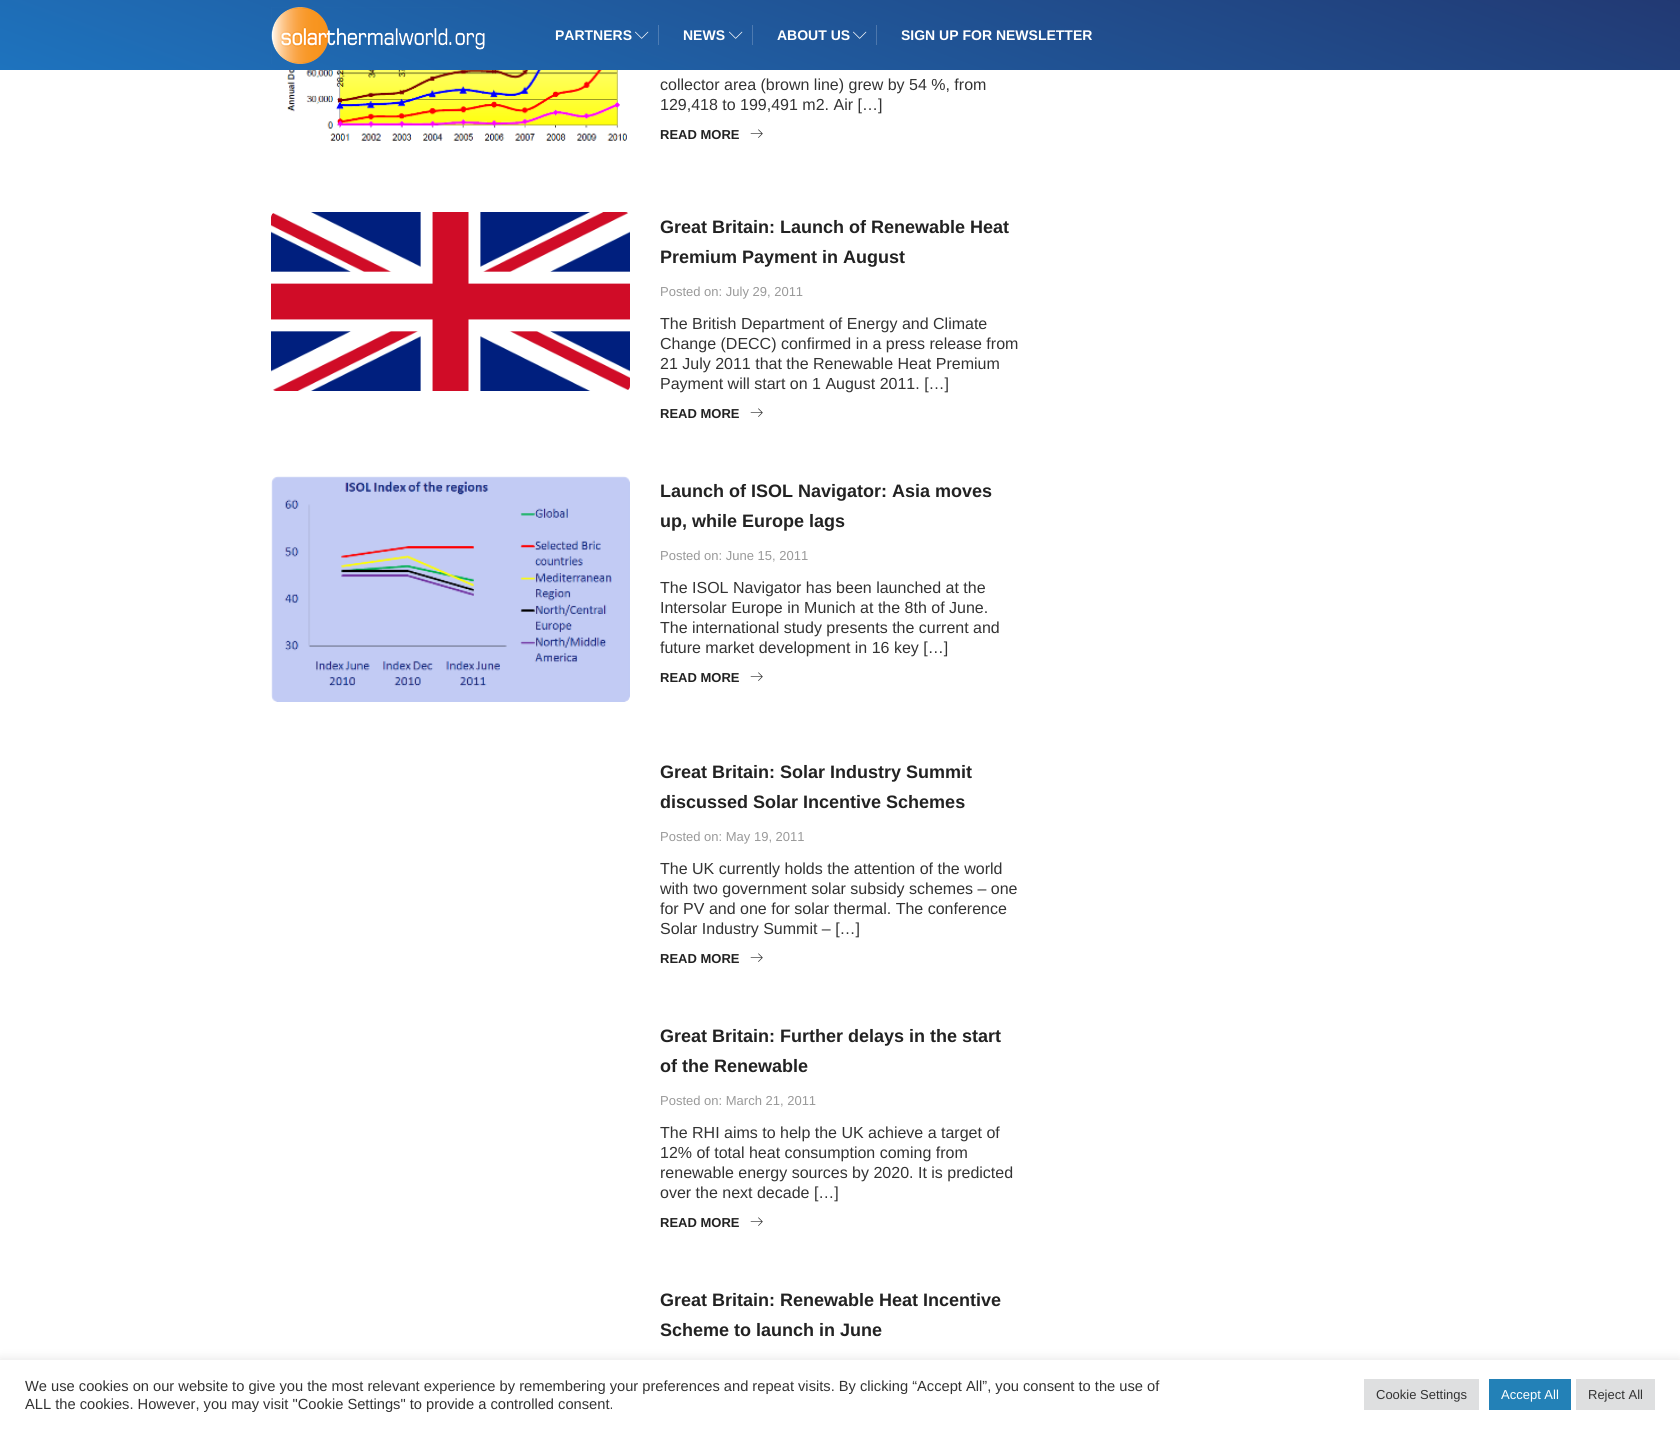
import math
import cairo

surface = cairo.ImageSurface(cairo.FORMAT_RGB24, 1680, 1429)
ctx = cairo.Context(surface)
options = cairo.FontOptions()
options.set_hint_metrics(cairo.HINT_METRICS_OFF)
options.set_hint_style(cairo.HINT_STYLE_NONE)
ctx.set_font_options(options)
ctx.set_miter_limit(4)


def round_rect(x, y, w, h, r):
    ctx.new_sub_path()
    for i, (u, v) in enumerate([(x + w - r, y + h - r), (x + r, y + h - r), (x + r, y + r), (x + w - r, y + r)]):
        ctx.arc(u, v, r, i * math.pi / 2, (i + 1) * math.pi / 2)
    ctx.close_path()


def shadow(x, y, w, h, r, blur, alpha):
    ctx.push_group_with_content(cairo.CONTENT_ALPHA)
    ctx.set_operator(cairo.OPERATOR_SOURCE)
    for i in range(15, -16, -2):
        e = blur * i / 6
        if min(w, h) + 2 * e > 0:
            ctx.set_source_rgba(0, 0, 0, alpha * math.erfc((i - 1) / 8.5) / 2)
            round_rect(x - e, y - e, w + 2 * e, h + 2 * e, max(0, min(r + e + blur * .6, min(w, h) / 2 + e)))
            ctx.fill()
    ctx.mask(ctx.pop_group())


def picture(path, x, y, w, h):
    ctx.save()
    ctx.set_source_surface(cairo.ImageSurface.create_from_png(path), x, y)
    ctx.rectangle(x, y, w, h)
    ctx.fill()
    ctx.restore()


ctx.set_source_rgb(1, 1, 1)
ctx.paint()
gradient = cairo.LinearGradient(730, 336, 950, -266)
gradient.add_color_stop_rgba(0, 0.118, 0.451, 0.745, 1)
gradient.add_color_stop_rgba(1, 0.133, 0.224, 0.451, 1)
ctx.set_source(gradient)
ctx.rectangle(0, 0, 1680, 70)
ctx.fill()
picture("img1.png", 271, 7, 214, 57)
ctx.select_font_face("Liberation Sans", cairo.FONT_SLANT_NORMAL, cairo.FONT_WEIGHT_BOLD)
ctx.set_font_size(14)
ctx.set_source_rgb(1, 1, 1)
ctx.move_to(555, 40)
ctx.show_text("PARTNERS")
picture("img2.png", 635, 31, 14, 8)
ctx.set_source_rgb(0.302, 0.486, 0.702)
ctx.rectangle(658, 25, 1, 20)
ctx.fill()
ctx.set_source_rgb(1, 1, 1)
ctx.move_to(683, 40)
ctx.show_text("NEWS")
picture("img3.png", 729, 31, 14, 8)
ctx.set_source_rgb(0.302, 0.478, 0.69)
ctx.rectangle(752, 25, 1, 20)
ctx.fill()
ctx.set_source_rgb(1, 1, 1)
ctx.move_to(777, 40)
ctx.show_text("ABOUT US")
picture("img4.png", 853, 31, 14, 8)
ctx.set_source_rgb(0.302, 0.467, 0.675)
ctx.rectangle(876, 25, 1, 20)
ctx.fill()
ctx.set_source_rgb(1, 1, 1)
ctx.move_to(901, 40)
ctx.show_text("SIGN UP FOR NEWSLETTER")
picture("img5.png", 287, 70, 340, 71)
ctx.select_font_face("Liberation Sans")
ctx.set_font_size(16)
ctx.set_source_rgb(0.2, 0.2, 0.2)
ctx.move_to(660, 90)
ctx.show_text("collector area (brown line) grew by 54 %, from")
ctx.move_to(660, 110)
ctx.show_text("129,418 to 199,491 m2. Air […]")
ctx.select_font_face("Liberation Sans", cairo.FONT_SLANT_NORMAL, cairo.FONT_WEIGHT_BOLD)
ctx.set_font_size(13)
ctx.set_source_rgb(0.133, 0.133, 0.133)
ctx.move_to(660, 139)
ctx.show_text("READ MORE")
picture("img6.png", 750, 129, 13, 9)
picture("img7.png", 271, 212, 359, 179)
ctx.set_font_size(18)
ctx.move_to(660, 233)
ctx.show_text("Great Britain: Launch of Renewable Heat")
ctx.move_to(660, 263)
ctx.show_text("Premium Payment in August")
ctx.select_font_face("Liberation Sans")
ctx.set_font_size(13)
ctx.set_source_rgb(0.6, 0.6, 0.6)
ctx.move_to(660, 296)
ctx.show_text("Posted on: July 29, 2011")
ctx.set_font_size(16)
ctx.set_source_rgb(0.2, 0.2, 0.2)
ctx.move_to(660, 329)
ctx.show_text("The British Department of Energy and Climate")
ctx.move_to(660, 349)
ctx.show_text("Change (DECC) confirmed in a press release from")
ctx.move_to(660, 369)
ctx.show_text("21 July 2011 that the Renewable Heat Premium")
ctx.move_to(660, 389)
ctx.show_text("Payment will start on 1 August 2011. […]")
ctx.select_font_face("Liberation Sans", cairo.FONT_SLANT_NORMAL, cairo.FONT_WEIGHT_BOLD)
ctx.set_font_size(13)
ctx.set_source_rgb(0.133, 0.133, 0.133)
ctx.move_to(660, 418)
ctx.show_text("READ MORE")
picture("img6.png", 750, 408, 13, 9)
picture("img8.png", 271, 476, 359, 226)
ctx.set_font_size(18)
ctx.move_to(660, 497)
ctx.show_text("Launch of ISOL Navigator: Asia moves")
ctx.move_to(660, 527)
ctx.show_text("up, while Europe lags")
ctx.select_font_face("Liberation Sans")
ctx.set_font_size(13)
ctx.set_source_rgb(0.6, 0.6, 0.6)
ctx.move_to(660, 560)
ctx.show_text("Posted on: June 15, 2011")
ctx.set_font_size(16)
ctx.set_source_rgb(0.2, 0.2, 0.2)
ctx.move_to(660, 593)
ctx.show_text("The ISOL Navigator has been launched at the")
ctx.move_to(660, 613)
ctx.show_text("Intersolar Europe in Munich at the 8th of June.")
ctx.move_to(660, 633)
ctx.show_text("The international study presents the current and")
ctx.move_to(660, 653)
ctx.show_text("future market development in 16 key […]")
ctx.select_font_face("Liberation Sans", cairo.FONT_SLANT_NORMAL, cairo.FONT_WEIGHT_BOLD)
ctx.set_font_size(13)
ctx.set_source_rgb(0.133, 0.133, 0.133)
ctx.move_to(660, 682)
ctx.show_text("READ MORE")
picture("img6.png", 750, 672, 13, 9)
ctx.set_font_size(18)
ctx.move_to(660, 778)
ctx.show_text("Great Britain: Solar Industry Summit")
ctx.move_to(660, 808)
ctx.show_text("discussed Solar Incentive Schemes")
ctx.select_font_face("Liberation Sans")
ctx.set_font_size(13)
ctx.set_source_rgb(0.6, 0.6, 0.6)
ctx.move_to(660, 841)
ctx.show_text("Posted on: May 19, 2011")
ctx.set_font_size(16)
ctx.set_source_rgb(0.2, 0.2, 0.2)
ctx.move_to(660, 874)
ctx.show_text("The UK currently holds the attention of the world")
ctx.move_to(660, 894)
ctx.show_text("with two government solar subsidy schemes – one")
ctx.move_to(660, 914)
ctx.show_text("for PV and one for solar thermal. The conference")
ctx.move_to(660, 934)
ctx.show_text("Solar Industry Summit – […]")
ctx.select_font_face("Liberation Sans", cairo.FONT_SLANT_NORMAL, cairo.FONT_WEIGHT_BOLD)
ctx.set_font_size(13)
ctx.set_source_rgb(0.133, 0.133, 0.133)
ctx.move_to(660, 963)
ctx.show_text("READ MORE")
picture("img6.png", 750, 953, 13, 9)
ctx.set_font_size(18)
ctx.move_to(660, 1042)
ctx.show_text("Great Britain: Further delays in the start")
ctx.move_to(660, 1072)
ctx.show_text("of the Renewable")
ctx.select_font_face("Liberation Sans")
ctx.set_font_size(13)
ctx.set_source_rgb(0.6, 0.6, 0.6)
ctx.move_to(660, 1105)
ctx.show_text("Posted on: March 21, 2011")
ctx.set_font_size(16)
ctx.set_source_rgb(0.2, 0.2, 0.2)
ctx.move_to(660, 1138)
ctx.show_text("The RHI aims to help the UK achieve a target of")
ctx.move_to(660, 1158)
ctx.show_text("12% of total heat consumption coming from")
ctx.move_to(660, 1178)
ctx.show_text("renewable energy sources by 2020. It is predicted")
ctx.move_to(660, 1198)
ctx.show_text("over the next decade […]")
ctx.select_font_face("Liberation Sans", cairo.FONT_SLANT_NORMAL, cairo.FONT_WEIGHT_BOLD)
ctx.set_font_size(13)
ctx.set_source_rgb(0.133, 0.133, 0.133)
ctx.move_to(660, 1227)
ctx.show_text("READ MORE")
picture("img6.png", 750, 1217, 13, 9)
ctx.set_font_size(18)
ctx.move_to(660, 1306)
ctx.show_text("Great Britain: Renewable Heat Incentive")
ctx.move_to(660, 1336)
ctx.show_text("Scheme to launch in June")
ctx.set_source_rgb(0.675, 0.671, 0.671)
shadow(0, 1359, 1680, 69, 0, 5, 0.3)
ctx.set_source_rgb(1, 1, 1)
ctx.rectangle(0, 1360, 1680, 69)
ctx.fill()
ctx.select_font_face("Liberation Sans")
ctx.set_font_size(14.67)
ctx.set_source_rgb(0.2, 0.2, 0.2)
ctx.move_to(25, 1391)
ctx.show_text("We use cookies on our website to give you the most relevant experience by remembering your preferences and repeat visits. By clicking “Accept All”, you consent to the use of")
ctx.move_to(25, 1409)
ctx.show_text("ALL the cookies. However, you may visit \"Cookie Settings\" to provide a controlled consent.")
ctx.set_source_rgb(0.871, 0.875, 0.878)
ctx.rectangle(1364, 1379, 115, 31)
ctx.fill()
ctx.set_font_size(13)
ctx.set_source_rgb(0.2, 0.2, 0.2)
ctx.move_to(1376, 1399)
ctx.show_text("Cookie Settings")
ctx.set_source_rgb(0.137, 0.506, 0.718)
ctx.rectangle(1489, 1379, 82, 31)
ctx.fill()
ctx.set_source_rgb(1, 1, 1)
ctx.move_to(1501, 1399)
ctx.show_text("Accept All")
ctx.set_source_rgb(0.871, 0.875, 0.878)
ctx.rectangle(1576, 1379, 79, 31)
ctx.fill()
ctx.set_source_rgb(0.2, 0.2, 0.2)
ctx.move_to(1588, 1399)
ctx.show_text("Reject All")
surface.write_to_png("page.png")
